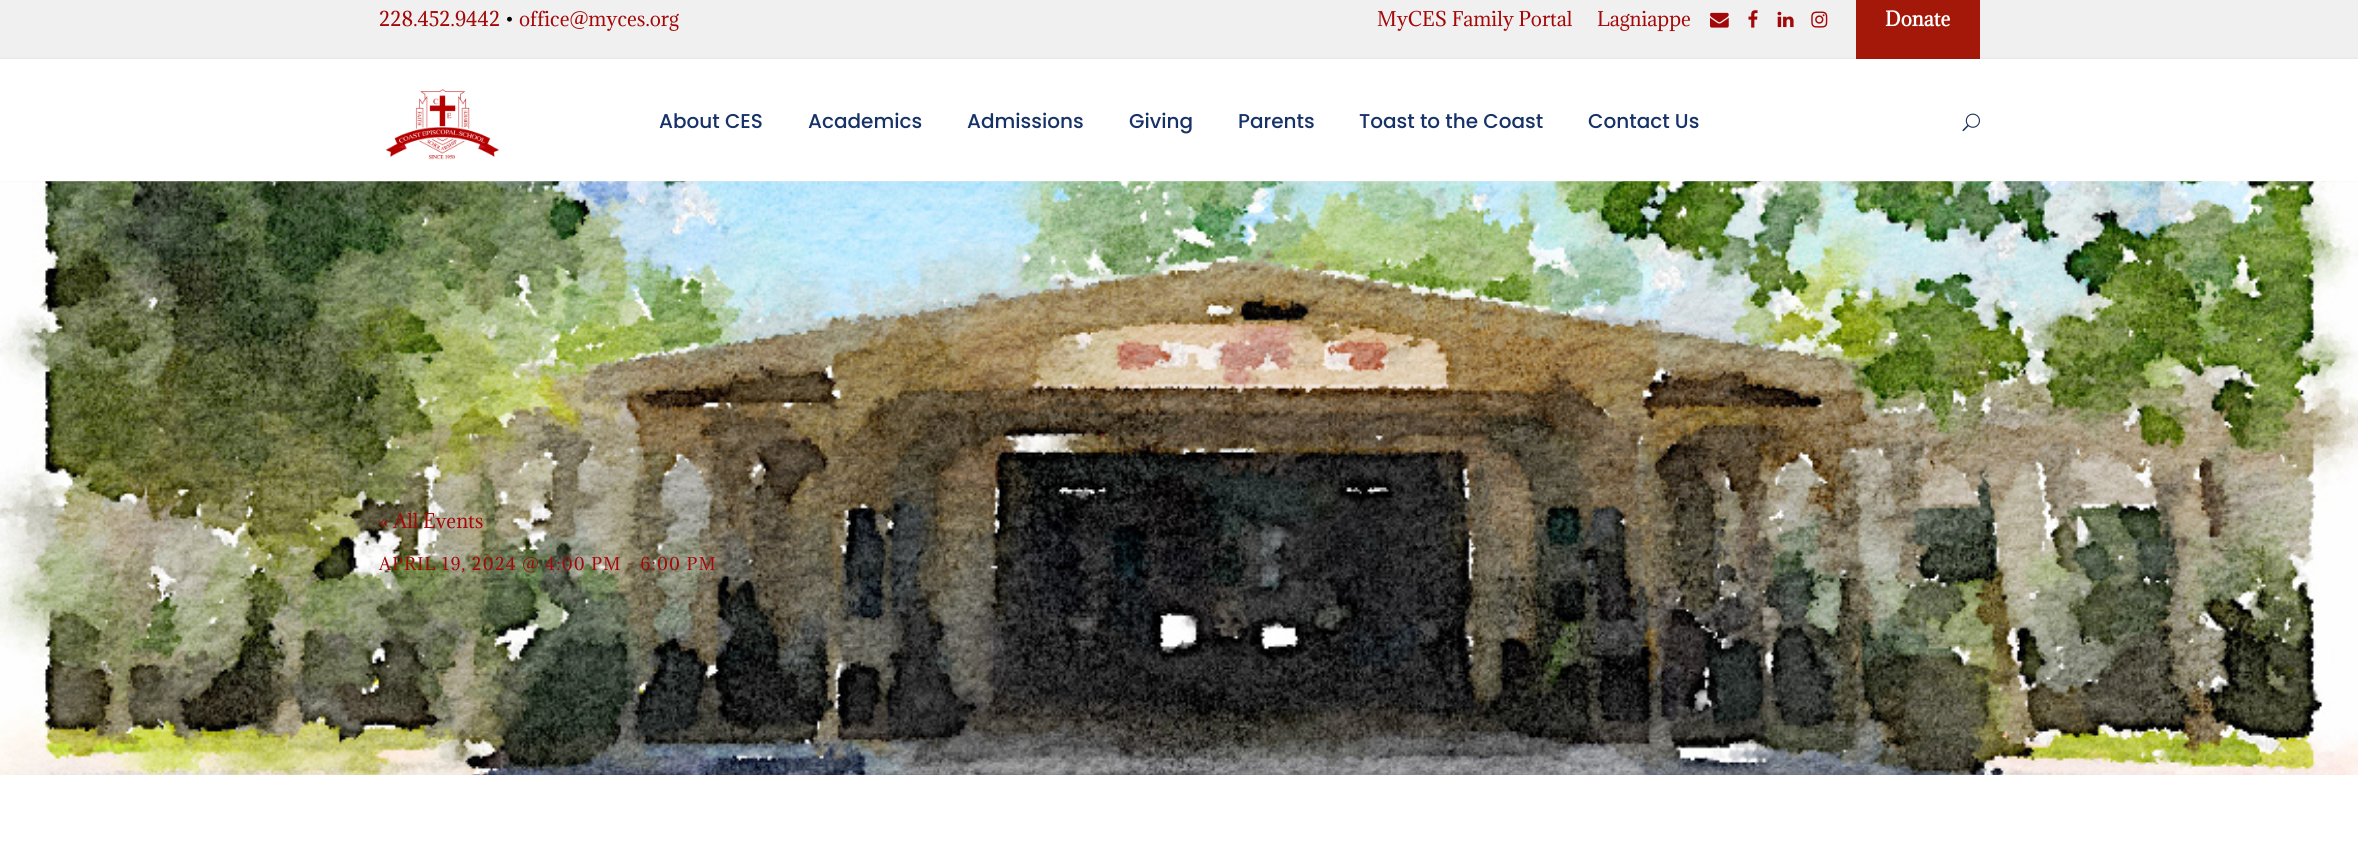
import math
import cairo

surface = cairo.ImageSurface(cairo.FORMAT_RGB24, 2358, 853)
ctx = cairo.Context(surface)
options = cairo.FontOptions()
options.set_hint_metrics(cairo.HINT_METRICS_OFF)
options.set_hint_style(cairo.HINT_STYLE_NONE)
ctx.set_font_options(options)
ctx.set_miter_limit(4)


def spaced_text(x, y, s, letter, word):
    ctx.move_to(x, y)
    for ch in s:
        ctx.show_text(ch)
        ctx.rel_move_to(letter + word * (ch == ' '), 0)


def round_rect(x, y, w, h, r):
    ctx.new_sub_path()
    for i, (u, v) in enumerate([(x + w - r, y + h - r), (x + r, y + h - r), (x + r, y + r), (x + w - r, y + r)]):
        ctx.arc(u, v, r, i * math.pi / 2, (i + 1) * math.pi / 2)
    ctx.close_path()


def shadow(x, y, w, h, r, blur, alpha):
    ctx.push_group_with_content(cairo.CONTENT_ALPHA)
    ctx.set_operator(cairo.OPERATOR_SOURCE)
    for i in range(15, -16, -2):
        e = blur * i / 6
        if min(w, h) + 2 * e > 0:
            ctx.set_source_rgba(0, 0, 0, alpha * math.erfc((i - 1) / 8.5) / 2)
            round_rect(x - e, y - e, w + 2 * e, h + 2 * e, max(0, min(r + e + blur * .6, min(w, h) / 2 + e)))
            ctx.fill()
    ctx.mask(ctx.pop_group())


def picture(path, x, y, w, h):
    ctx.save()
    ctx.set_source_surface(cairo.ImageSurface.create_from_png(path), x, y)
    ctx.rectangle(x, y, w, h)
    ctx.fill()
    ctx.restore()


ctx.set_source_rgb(1, 1, 1)
ctx.paint()
ctx.set_source_rgb(0.941, 0.941, 0.941)
ctx.rectangle(0, 0, 2358, 59)
ctx.fill()
ctx.select_font_face("Adamina")
ctx.set_font_size(18.75)
ctx.set_source_rgb(0.639, 0.031, 0.031)
ctx.move_to(379, 26)
ctx.show_text("228.452.9442")
ctx.set_source_rgb(0, 0, 0)
ctx.move_to(505, 26)
ctx.show_text("•")
ctx.set_source_rgb(0.639, 0.031, 0.031)
ctx.move_to(519, 26)
ctx.show_text("office@myces.org")
ctx.move_to(1377, 26)
ctx.show_text("MyCES Family Portal")
ctx.move_to(1597, 26)
ctx.show_text("Lagniappe")
picture("img1.png", 1710, 12, 19, 16)
picture("img2.png", 1748, 10, 10, 18)
picture("img3.png", 1777, 11, 17, 17)
picture("img4.png", 1811, 11, 17, 17)
ctx.set_source_rgb(0.639, 0.094, 0.039)
ctx.rectangle(1856, 0, 124, 59)
ctx.fill()
ctx.select_font_face("Adamina", cairo.FONT_SLANT_NORMAL, cairo.FONT_WEIGHT_BOLD)
ctx.set_source_rgb(1, 1, 1)
ctx.move_to(1885, 26)
ctx.show_text("Donate")
ctx.set_source_rgb(0, 0, 0)
shadow(0, 60, 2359, 123, 0, 2.5, 0.1)
ctx.set_source_rgb(1, 1, 1)
ctx.rectangle(0, 59, 2358, 122)
ctx.fill()
picture("img5.png", 385, 88, 115, 72)
ctx.select_font_face("Poppins Medium")
ctx.set_font_size(20)
ctx.set_source_rgb(0.086, 0.196, 0.412)
ctx.move_to(659, 128)
ctx.show_text("About CES")
ctx.move_to(808, 128)
ctx.show_text("Academics")
ctx.move_to(967, 128)
ctx.show_text("Admissions")
ctx.move_to(1129, 128)
ctx.show_text("Giving")
ctx.move_to(1238, 128)
ctx.show_text("Parents")
ctx.move_to(1359, 128)
ctx.show_text("Toast to the Coast")
ctx.move_to(1588, 128)
ctx.show_text("Contact Us")
picture("img6.png", 1962, 113, 18, 19)
picture("img7.png", 0, 181, 2358, 594)
ctx.select_font_face("Adamina")
ctx.set_font_size(18.75)
ctx.set_source_rgb(0.639, 0.031, 0.031)
ctx.move_to(379, 528)
ctx.show_text("« All Events")
ctx.set_font_size(16.25)
spaced_text(379, 570, "APRIL 19, 2024 @ 4:00 PM - 6:00 PM", 1.25, 0)
surface.write_to_png("page.png")
